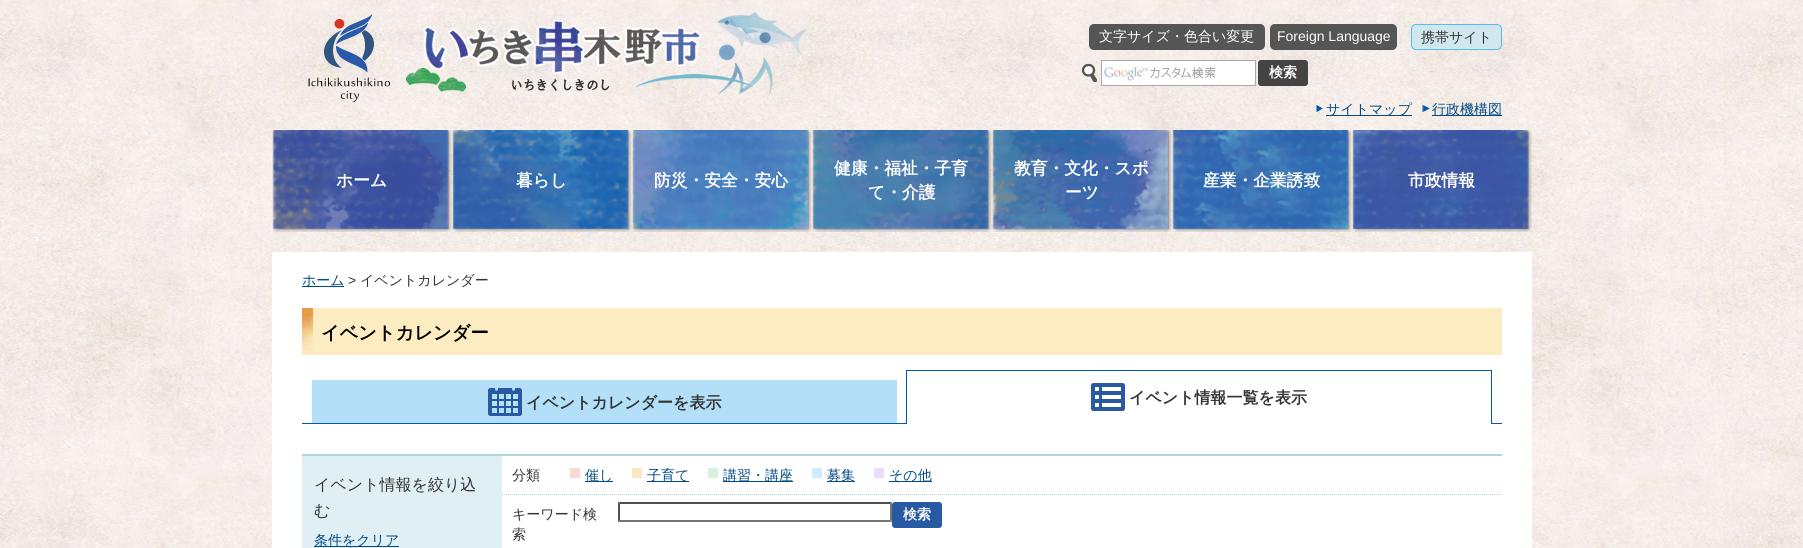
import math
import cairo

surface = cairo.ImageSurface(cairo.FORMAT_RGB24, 1803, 548)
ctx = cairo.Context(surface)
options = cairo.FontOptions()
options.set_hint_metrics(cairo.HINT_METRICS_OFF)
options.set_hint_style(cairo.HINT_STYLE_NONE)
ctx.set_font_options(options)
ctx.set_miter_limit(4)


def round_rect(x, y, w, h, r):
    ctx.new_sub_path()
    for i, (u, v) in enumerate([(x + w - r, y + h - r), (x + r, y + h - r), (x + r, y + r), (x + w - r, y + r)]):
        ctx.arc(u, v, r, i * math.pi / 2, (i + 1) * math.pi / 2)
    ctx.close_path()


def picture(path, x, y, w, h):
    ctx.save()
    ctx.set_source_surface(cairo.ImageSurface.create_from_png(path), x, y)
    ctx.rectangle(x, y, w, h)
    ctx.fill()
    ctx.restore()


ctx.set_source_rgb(1, 1, 1)
ctx.paint()
picture("img1.png", 0, 0, 1803, 548)
picture("img2.png", 302, 14, 98, 15)
picture("img3.png", 308, 11, 499, 92)
ctx.set_source_rgb(0.333, 0.333, 0.333)
round_rect(1089, 24, 176, 26, 5)
ctx.fill()
ctx.select_font_face("WenQuanYi Zen Hei Medium")
ctx.set_font_size(14)
ctx.set_source_rgb(1, 1, 1)
ctx.move_to(1099, 41)
ctx.show_text("文字サイズ・色合い変更")
ctx.set_source_rgb(0.333, 0.333, 0.333)
round_rect(1270, 24, 127, 26, 5)
ctx.fill()
ctx.select_font_face("Liberation Sans")
ctx.set_source_rgb(1, 1, 1)
ctx.move_to(1277, 41)
ctx.show_text("Foreign Language")
ctx.set_source_rgb(0.816, 0.906, 0.933)
round_rect(1411.5, 24.5, 90, 25, 4.5)
ctx.fill_preserve()
ctx.set_source_rgb(0.345, 0.741, 0.925)
ctx.set_line_width(1)
ctx.stroke()
ctx.select_font_face("WenQuanYi Zen Hei Medium")
ctx.set_source_rgb(0.2, 0.2, 0.2)
ctx.move_to(1421, 42)
ctx.show_text("携帯サイト")
picture("img4.png", 1081, 63, 16, 19)
ctx.set_source_rgb(1, 1, 1)
ctx.rectangle(1102, 61, 153, 24)
ctx.fill()
picture("img5.png", 1104, 67, 112, 14)
ctx.rectangle(1101.5, 60.5, 154, 25)
ctx.set_source_rgb(0.667, 0.667, 0.667)
ctx.stroke()
ctx.set_source_rgb(0.267, 0.267, 0.267)
round_rect(1258, 60, 50, 26, 3)
ctx.fill()
ctx.select_font_face("WenQuanYi Zen Hei", cairo.FONT_SLANT_NORMAL, cairo.FONT_WEIGHT_BOLD)
ctx.set_source_rgb(1, 1, 1)
ctx.move_to(1269, 77)
ctx.show_text("検索")
picture("img6.png", 1316, 105, 7, 7)
ctx.set_source_rgb(0.008, 0.294, 0.525)
ctx.rectangle(1326, 115, 86, 1)
ctx.fill()
ctx.select_font_face("WenQuanYi Zen Hei Medium")
ctx.move_to(1326, 114)
ctx.show_text("サイトマップ")
picture("img7.png", 1422, 105, 8, 7)
ctx.rectangle(1432, 115, 70, 1)
ctx.fill()
ctx.move_to(1432, 114)
ctx.show_text("行政機構図")
picture("img8.png", 272, 130, 180, 102)
ctx.select_font_face("WenQuanYi Zen Hei", cairo.FONT_SLANT_NORMAL, cairo.FONT_WEIGHT_BOLD)
ctx.set_font_size(16.75)
ctx.set_source_rgb(1, 1, 1)
ctx.move_to(336, 186)
ctx.show_text("ホーム")
picture("img9.png", 452, 130, 180, 102)
ctx.move_to(516, 186)
ctx.show_text("暮らし")
picture("img10.png", 632, 130, 180, 102)
ctx.move_to(654, 186)
ctx.show_text("防災・安全・安心")
picture("img11.png", 812, 130, 180, 102)
ctx.move_to(834, 174)
ctx.show_text("健康・福祉・子育")
ctx.move_to(868, 198)
ctx.show_text("て・介護")
picture("img12.png", 992, 130, 180, 102)
ctx.move_to(1014, 174)
ctx.show_text("教育・文化・スポ")
ctx.move_to(1065, 198)
ctx.show_text("ーツ")
picture("img13.png", 1172, 130, 180, 102)
ctx.move_to(1203, 186)
ctx.show_text("産業・企業誘致")
picture("img14.png", 1352, 130, 180, 102)
ctx.move_to(1408, 186)
ctx.show_text("市政情報")
ctx.rectangle(272, 252, 1260, 296)
ctx.fill()
ctx.set_source_rgb(0.008, 0.294, 0.525)
ctx.rectangle(302, 286, 42, 1)
ctx.fill()
ctx.select_font_face("WenQuanYi Zen Hei Medium")
ctx.set_font_size(14)
ctx.move_to(302, 285)
ctx.show_text("ホーム")
ctx.select_font_face("Liberation Sans")
ctx.set_source_rgb(0.2, 0.2, 0.2)
ctx.move_to(348, 285)
ctx.show_text(">")
ctx.select_font_face("WenQuanYi Zen Hei Medium")
ctx.move_to(360, 285)
ctx.show_text("イベントカレンダー")
ctx.set_source_rgb(0.992, 0.918, 0.757)
ctx.rectangle(302, 308, 1200, 47)
ctx.fill()
picture("img15.png", 302, 308, 11, 43)
ctx.select_font_face("WenQuanYi Zen Hei", cairo.FONT_SLANT_NORMAL, cairo.FONT_WEIGHT_BOLD)
ctx.set_font_size(18.25)
ctx.set_source_rgb(0, 0, 0)
ctx.move_to(321, 339)
ctx.show_text("イベントカレンダー")
ctx.set_source_rgb(0, 0.353, 0.671)
ctx.rectangle(302, 423, 1200, 1)
ctx.fill()
ctx.set_source_rgb(0.702, 0.878, 0.969)
ctx.rectangle(312, 380, 585, 43)
ctx.fill()
picture("img16.png", 488, 388, 34, 28)
ctx.set_font_size(16)
ctx.set_source_rgb(0.2, 0.2, 0.2)
ctx.move_to(526, 408)
ctx.show_text("イベントカレンダーを表示")
ctx.set_source_rgb(1, 1, 1)
ctx.rectangle(907, 423, 584, 1)
ctx.fill()
ctx.set_source_rgb(0, 0.353, 0.671)
ctx.rectangle(906, 370, 586, 1)
ctx.fill()
ctx.rectangle(1491, 370, 1, 54)
ctx.fill()
ctx.rectangle(906, 370, 1, 54)
ctx.fill()
picture("img17.png", 1091, 383, 34, 28)
ctx.set_source_rgb(0.2, 0.2, 0.2)
ctx.move_to(1129, 403)
ctx.show_text("イベント情報一覧を表示")
ctx.set_source_rgb(0.878, 0.937, 0.953)
ctx.rectangle(302, 456, 200, 92)
ctx.fill()
ctx.set_source_rgb(0.686, 0.839, 0.89)
ctx.rectangle(302, 454, 1200, 2)
ctx.fill()
ctx.select_font_face("WenQuanYi Zen Hei Medium")
ctx.set_source_rgb(0.2, 0.2, 0.2)
ctx.move_to(314, 490)
ctx.show_text("イベント情報を絞り込")
ctx.move_to(314, 516)
ctx.show_text("む")
ctx.set_source_rgb(0.008, 0.294, 0.525)
ctx.rectangle(314, 546, 85, 1)
ctx.fill()
ctx.set_font_size(14)
ctx.move_to(314, 545)
ctx.show_text("条件をクリア")
ctx.set_source_rgb(0.2, 0.2, 0.2)
ctx.move_to(512, 480)
ctx.show_text("分類")
ctx.set_source_rgb(0.98, 0.847, 0.839)
ctx.rectangle(570, 468, 10, 10)
ctx.fill()
ctx.set_source_rgb(0.008, 0.294, 0.525)
ctx.rectangle(585, 481, 28, 1)
ctx.fill()
ctx.move_to(585, 480)
ctx.show_text("催し")
ctx.set_source_rgb(0.996, 0.906, 0.753)
ctx.rectangle(632, 468, 10, 10)
ctx.fill()
ctx.set_source_rgb(0.008, 0.294, 0.525)
ctx.rectangle(647, 481, 42, 1)
ctx.fill()
ctx.move_to(647, 480)
ctx.show_text("子育て")
ctx.set_source_rgb(0.847, 0.945, 0.855)
ctx.rectangle(708, 468, 10, 10)
ctx.fill()
ctx.set_source_rgb(0.008, 0.294, 0.525)
ctx.rectangle(723, 481, 70, 1)
ctx.fill()
ctx.move_to(723, 480)
ctx.show_text("講習・講座")
ctx.set_source_rgb(0.804, 0.925, 0.988)
ctx.rectangle(812, 468, 10, 10)
ctx.fill()
ctx.set_source_rgb(0.008, 0.294, 0.525)
ctx.rectangle(827, 481, 28, 1)
ctx.fill()
ctx.move_to(827, 480)
ctx.show_text("募集")
ctx.set_source_rgb(0.918, 0.863, 0.973)
ctx.rectangle(874, 468, 10, 10)
ctx.fill()
ctx.set_source_rgb(0.008, 0.294, 0.525)
ctx.rectangle(889, 481, 43, 1)
ctx.fill()
ctx.move_to(889, 480)
ctx.show_text("その他")
ctx.set_source_rgb(0.2, 0.2, 0.2)
ctx.move_to(512, 519)
ctx.show_text("キーワード検")
ctx.move_to(512, 539)
ctx.show_text("索")
ctx.new_path()
ctx.move_to(502, 494.5)
ctx.line_to(1502, 494.5)
ctx.set_source_rgb(0.686, 0.839, 0.89)
ctx.set_dash([1, 1])
ctx.stroke()
ctx.set_source_rgb(0.31, 0.31, 0.31)
ctx.new_path()
ctx.move_to(618, 502)
ctx.line_to(892, 502)
ctx.line_to(890, 504)
ctx.line_to(620, 504)
ctx.close_path()
ctx.fill()
ctx.set_source_rgb(0.463, 0.463, 0.463)
ctx.new_path()
ctx.move_to(892, 502)
ctx.line_to(892, 522)
ctx.line_to(890, 520)
ctx.line_to(890, 504)
ctx.close_path()
ctx.fill()
ctx.new_path()
ctx.move_to(892, 522)
ctx.line_to(618, 522)
ctx.line_to(620, 520)
ctx.line_to(890, 520)
ctx.close_path()
ctx.fill()
ctx.set_source_rgb(0.31, 0.31, 0.31)
ctx.new_path()
ctx.move_to(618, 522)
ctx.line_to(618, 502)
ctx.line_to(620, 504)
ctx.line_to(620, 520)
ctx.close_path()
ctx.fill()
ctx.set_source_rgb(0.157, 0.349, 0.639)
round_rect(892, 502, 50, 26, 3)
ctx.fill()
ctx.select_font_face("WenQuanYi Zen Hei", cairo.FONT_SLANT_NORMAL, cairo.FONT_WEIGHT_BOLD)
ctx.set_source_rgb(1, 1, 1)
ctx.move_to(903, 519)
ctx.show_text("検索")
surface.write_to_png("page.png")
